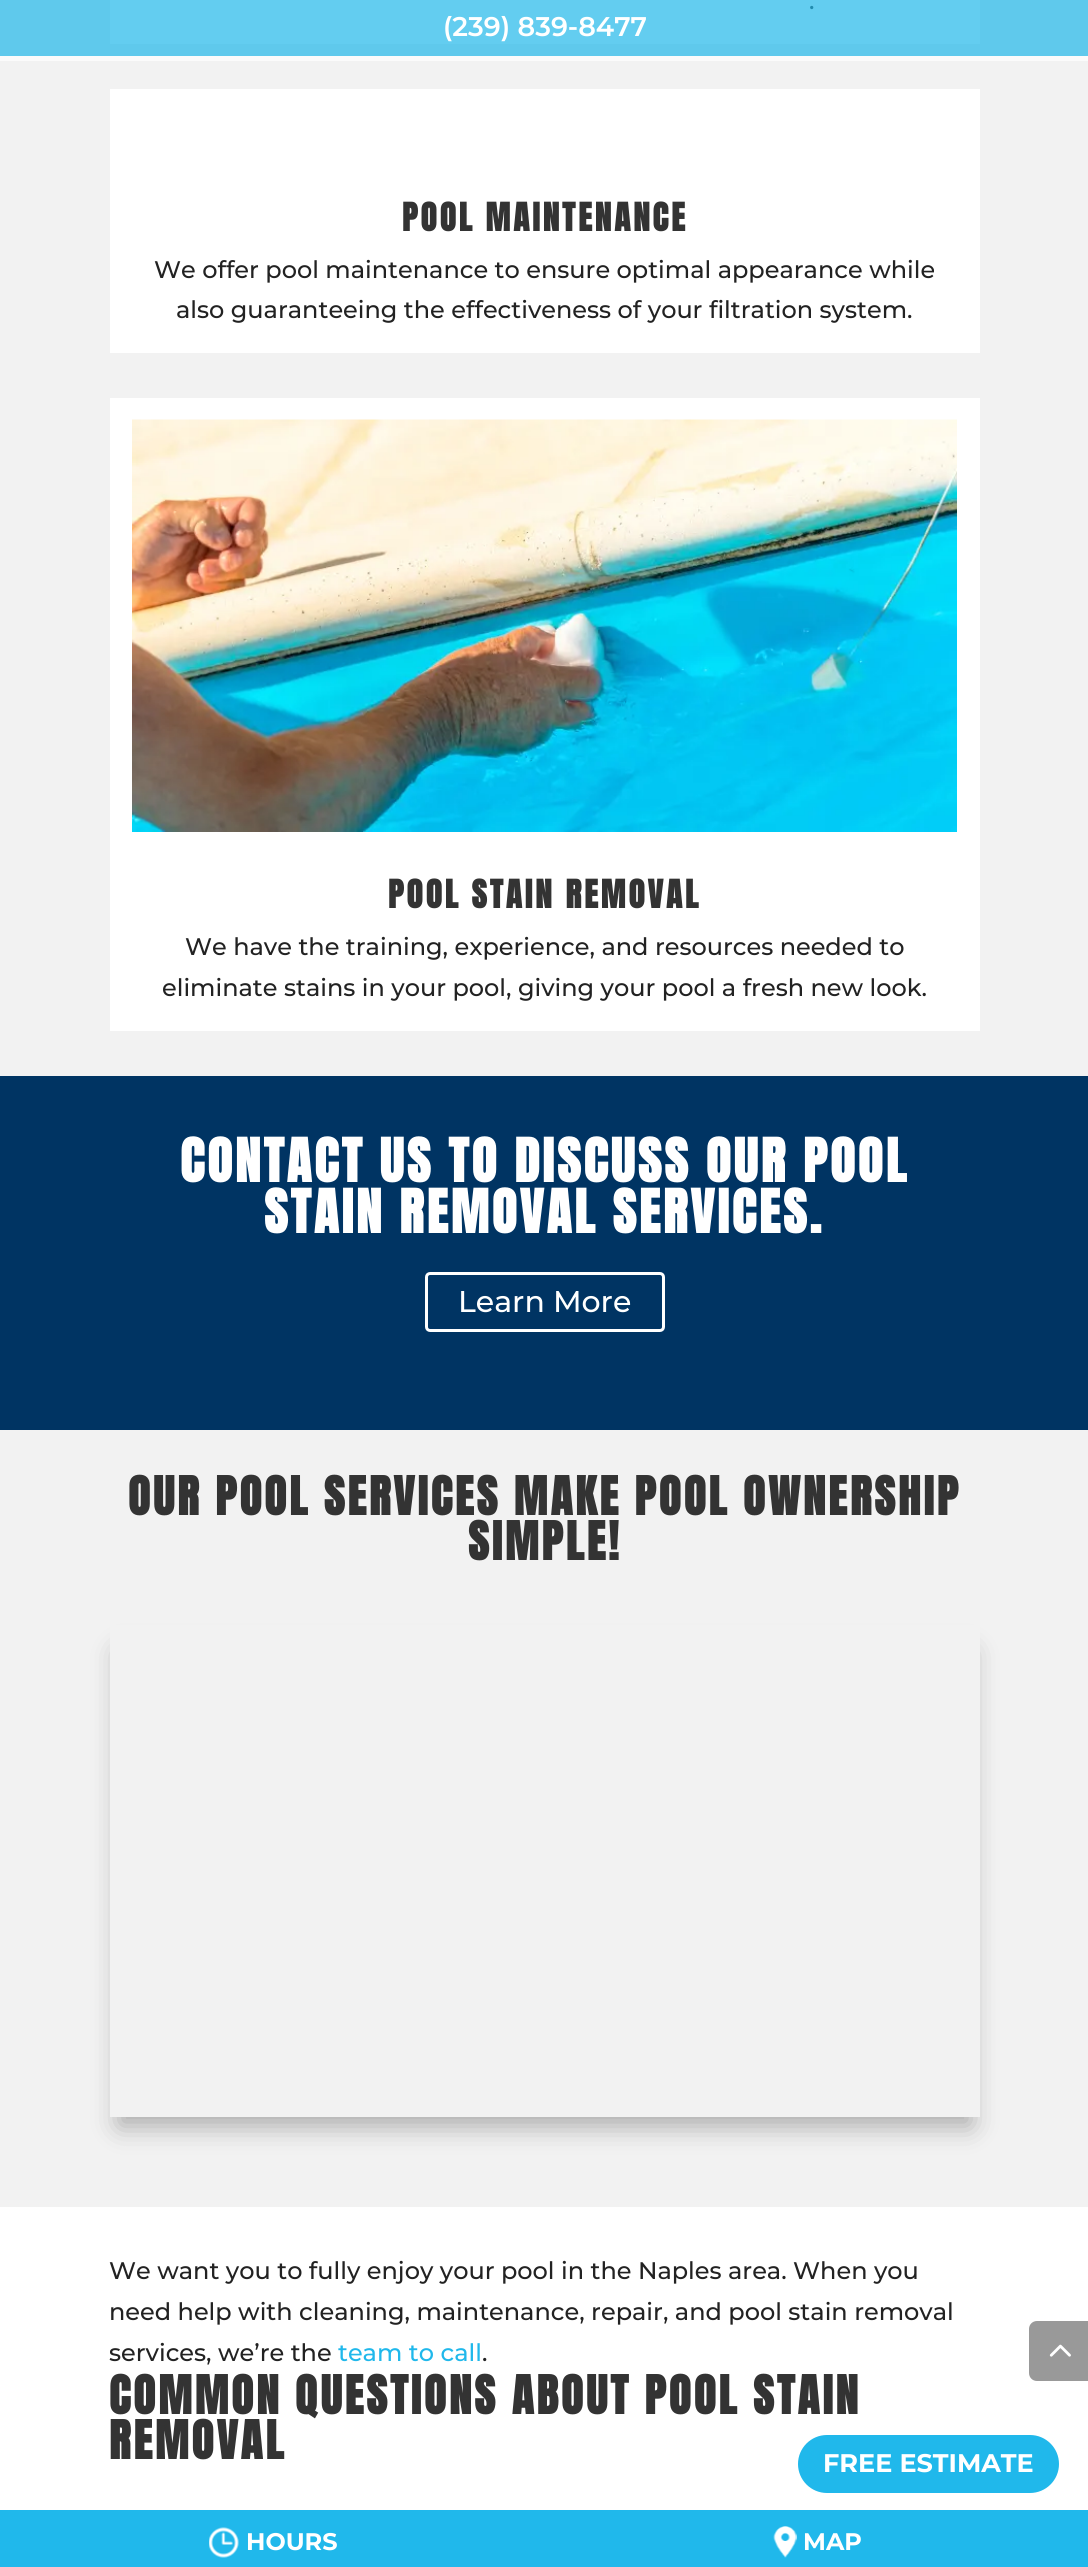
import math
import cairo

surface = cairo.ImageSurface(cairo.FORMAT_RGB24, 1088, 2567)
ctx = cairo.Context(surface)
options = cairo.FontOptions()
options.set_hint_metrics(cairo.HINT_METRICS_OFF)
options.set_hint_style(cairo.HINT_STYLE_NONE)
ctx.set_font_options(options)
ctx.set_miter_limit(4)


def spaced_text(x, y, s, letter, word):
    ctx.move_to(x, y)
    for ch in s:
        ctx.show_text(ch)
        ctx.rel_move_to(letter + word * (ch == ' '), 0)


def round_rect(x, y, w, h, r):
    ctx.new_sub_path()
    for i, (u, v) in enumerate([(x + w - r, y + h - r), (x + r, y + h - r), (x + r, y + r), (x + w - r, y + r)]):
        ctx.arc(u, v, r, i * math.pi / 2, (i + 1) * math.pi / 2)
    ctx.close_path()


def shadow(x, y, w, h, r, blur, alpha):
    ctx.push_group_with_content(cairo.CONTENT_ALPHA)
    ctx.set_operator(cairo.OPERATOR_SOURCE)
    for i in range(15, -16, -2):
        e = blur * i / 6
        if min(w, h) + 2 * e > 0:
            ctx.set_source_rgba(0, 0, 0, alpha * math.erfc((i - 1) / 8.5) / 2)
            round_rect(x - e, y - e, w + 2 * e, h + 2 * e, max(0, min(r + e + blur * .6, min(w, h) / 2 + e)))
            ctx.fill()
    ctx.mask(ctx.pop_group())


def picture(path, x, y, w, h):
    ctx.save()
    ctx.set_source_surface(cairo.ImageSurface.create_from_png(path), x, y)
    ctx.rectangle(x, y, w, h)
    ctx.fill()
    ctx.restore()


ctx.set_source_rgb(1, 1, 1)
ctx.paint()
ctx.set_source_rgb(0.949, 0.949, 0.949)
ctx.rectangle(0, 61, 1088, 1015)
ctx.fill()
ctx.set_source_rgb(0.373, 0.788, 0.925)
ctx.rectangle(0, 0, 1088, 56)
ctx.fill()
ctx.set_source_rgb(0.388, 0.804, 0.941)
ctx.rectangle(110, 0, 870, 44)
ctx.fill()
ctx.select_font_face("Montserrat Medium")
ctx.set_font_size(24)
ctx.set_source_rgb(0.129, 0.545, 0.682)
ctx.move_to(809, 9)
ctx.show_text(".")
ctx.set_source_rgb(1, 1, 1)
ctx.rectangle(110, 89, 870, 264)
ctx.fill()
ctx.select_font_face("Anton", cairo.FONT_SLANT_NORMAL, cairo.FONT_WEIGHT_BOLD)
ctx.set_font_size(33)
ctx.set_source_rgb(0.2, 0.2, 0.2)
spaced_text(402, 231, "POOL MAINTENANCE", 3, 0)
ctx.select_font_face("Montserrat Medium")
ctx.set_font_size(24)
ctx.set_source_rgb(0.133, 0.133, 0.133)
ctx.move_to(154, 278)
ctx.show_text("We offer pool maintenance to ensure optimal appearance while")
ctx.move_to(176, 318)
ctx.show_text("also guaranteeing the effectiveness of your filtration system.")
ctx.set_source_rgb(1, 1, 1)
ctx.rectangle(110, 398, 870, 633)
ctx.fill()
picture("img1.png", 132, 419, 825, 413)
ctx.select_font_face("Anton", cairo.FONT_SLANT_NORMAL, cairo.FONT_WEIGHT_BOLD)
ctx.set_font_size(33)
ctx.set_source_rgb(0.2, 0.2, 0.2)
spaced_text(388, 908, "POOL STAIN REMOVAL", 3, 0)
ctx.select_font_face("Montserrat Medium")
ctx.set_font_size(24)
ctx.set_source_rgb(0.133, 0.133, 0.133)
ctx.move_to(185, 955)
ctx.show_text("We have the training, experience, and resources needed to")
ctx.move_to(162, 996)
ctx.show_text("eliminate stains in your pool, giving your pool a fresh new look.")
ctx.set_source_rgb(0, 0.204, 0.388)
ctx.rectangle(0, 1076, 1088, 354)
ctx.fill()
ctx.select_font_face("Anton", cairo.FONT_SLANT_NORMAL, cairo.FONT_WEIGHT_BOLD)
ctx.set_font_size(51)
ctx.set_source_rgb(1, 1, 1)
spaced_text(180, 1182, "CONTACT US TO DISCUSS OUR POOL", 3, 0)
spaced_text(264, 1233, "STAIN REMOVAL SERVICES.", 3, 0)
round_rect(426.5, 1273.5, 237, 57, 3.5)
ctx.set_line_width(3)
ctx.stroke()
ctx.select_font_face("Montserrat Medium")
ctx.set_font_size(30)
ctx.move_to(458, 1312)
ctx.show_text("Learn More")
ctx.set_source_rgb(0.949, 0.949, 0.949)
ctx.rectangle(0, 1430, 1088, 777)
ctx.fill()
ctx.select_font_face("Anton", cairo.FONT_SLANT_NORMAL, cairo.FONT_WEIGHT_BOLD)
ctx.set_font_size(45)
ctx.set_source_rgb(0.2, 0.2, 0.2)
spaced_text(128, 1515, "OUR POOL SERVICES MAKE POOL OWNERSHIP", 3, 0)
spaced_text(468, 1560, "SIMPLE!", 3, 0)
ctx.save()
ctx.set_fill_rule(cairo.FILL_RULE_EVEN_ODD)
ctx.new_path()
ctx.move_to(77, 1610)
ctx.line_to(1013, 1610)
ctx.line_to(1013, 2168)
ctx.line_to(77, 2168)
ctx.close_path()
ctx.move_to(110, 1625)
ctx.line_to(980, 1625)
ctx.line_to(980, 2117)
ctx.line_to(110, 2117)
ctx.close_path()
ctx.clip()
ctx.set_source_rgb(0, 0, 0)
shadow(119, 1652, 852, 474, 0, 13.5, 0.3)
ctx.restore()
ctx.rectangle(111, 1626, 868, 490)
ctx.set_source_rgb(0.949, 0.949, 0.949)
ctx.set_line_width(2)
ctx.stroke()
ctx.select_font_face("Montserrat Medium")
ctx.set_font_size(24)
ctx.set_source_rgb(0.133, 0.133, 0.133)
ctx.move_to(109, 2279)
ctx.show_text("We want you to fully enjoy your pool in the Naples area. When you")
ctx.move_to(109, 2320)
ctx.show_text("need help with cleaning, maintenance, repair, and pool stain removal")
ctx.move_to(109, 2361)
ctx.show_text("services, we’re the")
ctx.set_source_rgb(0.125, 0.722, 0.918)
ctx.move_to(338, 2361)
ctx.show_text("team to call")
ctx.set_source_rgb(0.133, 0.133, 0.133)
ctx.move_to(482, 2361)
ctx.show_text(".")
ctx.select_font_face("Anton", cairo.FONT_SLANT_NORMAL, cairo.FONT_WEIGHT_BOLD)
ctx.set_font_size(45)
ctx.set_source_rgb(0.2, 0.2, 0.2)
spaced_text(109, 2414, "COMMON QUESTIONS ABOUT POOL STAIN", 3, 0)
spaced_text(109, 2459, "REMOVAL", 3, 0)
ctx.set_source_rgb(0.984, 0.984, 0.984)
ctx.rectangle(0, 56, 1088, 5)
ctx.fill()
ctx.select_font_face("Montserrat SemiBold")
ctx.set_font_size(27)
ctx.set_source_rgb(1, 1, 1)
ctx.move_to(443, 36)
ctx.show_text("(239) 839-8477")
ctx.set_source_rgb(0.125, 0.722, 0.918)
round_rect(798, 2435, 261, 58, 29)
ctx.fill()
ctx.select_font_face("Montserrat", cairo.FONT_SLANT_NORMAL, cairo.FONT_WEIGHT_BOLD)
ctx.set_font_size(25.5)
ctx.set_source_rgb(1, 1, 1)
ctx.move_to(823, 2472)
ctx.show_text("FREE ESTIMATE")
ctx.set_source_rgb(0.125, 0.722, 0.918)
ctx.rectangle(0, 2510, 1088, 57)
ctx.fill()
picture("img2.png", 209, 2527, 30, 31)
ctx.set_font_size(24)
ctx.set_source_rgb(1, 1, 1)
ctx.move_to(246, 2550)
ctx.show_text("HOURS")
picture("img3.png", 773, 2526, 24, 32)
ctx.move_to(803, 2550)
ctx.show_text("MAP")
ctx.set_source_rgb(0.6, 0.6, 0.6)
ctx.new_path()
ctx.move_to(1037, 2321)
ctx.line_to(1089, 2321)
ctx.line_to(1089, 2381)
ctx.line_to(1037, 2381)
ctx.curve_to(1032.5, 2381, 1029, 2377.5, 1029, 2373)
ctx.line_to(1029, 2329)
ctx.curve_to(1029, 2324.5, 1032.5, 2321, 1037, 2321)
ctx.close_path()
ctx.fill()
picture("img4.png", 1049, 2344, 22, 13)
surface.write_to_png("page.png")
